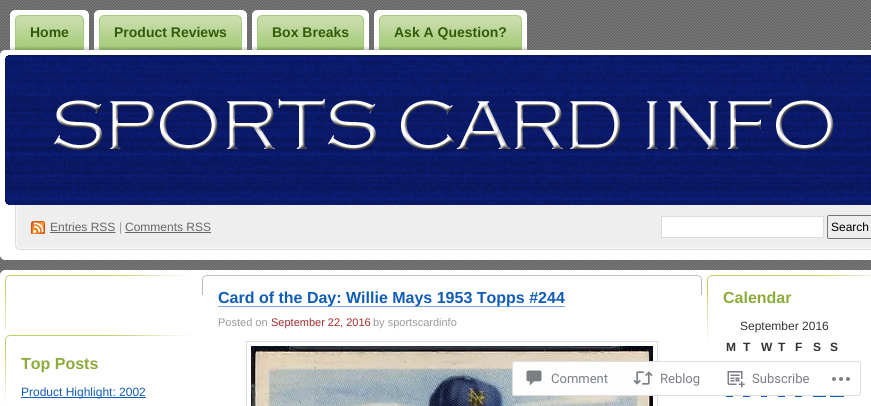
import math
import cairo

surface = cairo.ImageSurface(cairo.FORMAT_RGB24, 871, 406)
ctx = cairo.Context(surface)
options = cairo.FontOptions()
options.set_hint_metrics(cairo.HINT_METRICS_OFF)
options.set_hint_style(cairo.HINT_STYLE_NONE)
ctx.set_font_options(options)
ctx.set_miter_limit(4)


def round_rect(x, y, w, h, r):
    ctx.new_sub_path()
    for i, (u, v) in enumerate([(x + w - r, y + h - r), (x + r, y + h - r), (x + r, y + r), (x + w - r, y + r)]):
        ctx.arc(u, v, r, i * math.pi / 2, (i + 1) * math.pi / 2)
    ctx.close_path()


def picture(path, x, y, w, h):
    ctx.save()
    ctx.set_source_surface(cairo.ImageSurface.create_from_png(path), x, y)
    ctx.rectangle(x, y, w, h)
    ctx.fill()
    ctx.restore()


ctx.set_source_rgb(1, 1, 1)
ctx.paint()
picture("img1.png", 0, 0, 871, 270)
picture("img2.png", 20, 10, 69, 40)
picture("img3.png", 10, 10, 10, 40)
ctx.select_font_face("Liberation Sans", cairo.FONT_SLANT_NORMAL, cairo.FONT_WEIGHT_BOLD)
ctx.set_font_size(14)
ctx.set_source_rgb(0.196, 0.357, 0.039)
ctx.move_to(30, 37)
ctx.show_text("Home")
picture("img4.png", 104, 10, 143, 40)
picture("img3.png", 94, 10, 10, 40)
ctx.move_to(114, 37)
ctx.show_text("Product Reviews")
picture("img5.png", 262, 10, 107, 40)
picture("img3.png", 252, 10, 10, 40)
ctx.move_to(272, 37)
ctx.show_text("Box Breaks")
picture("img6.png", 384, 10, 143, 40)
picture("img3.png", 374, 10, 10, 40)
ctx.move_to(394, 37)
ctx.show_text("Ask A Question?")
picture("img8.png", 5, 55, 866, 150)
picture("img7.png", 0, 50, 871, 210)
picture("img9.png", 31, 221, 14, 13)
ctx.select_font_face("Liberation Sans")
ctx.set_font_size(12)
ctx.set_source_rgb(0.4, 0.4, 0.4)
ctx.move_to(50, 231)
ctx.show_text("Entries RSS")
ctx.rectangle(50, 232, 41, 1)
ctx.fill()
ctx.new_path()
ctx.move_to(90.5, 232.5)
ctx.line_to(115.5, 232.5)
ctx.set_line_width(1)
ctx.set_dash([1, 1])
ctx.stroke()
ctx.rectangle(91, 232, 24, 1)
ctx.fill()
ctx.set_source_rgb(0.6, 0.6, 0.6)
ctx.move_to(119, 231)
ctx.show_text("|")
ctx.set_source_rgb(0.4, 0.4, 0.4)
ctx.move_to(125, 231)
ctx.show_text("Comments RSS")
ctx.rectangle(125, 232, 86, 1)
ctx.fill()
ctx.set_source_rgb(1, 1, 1)
ctx.rectangle(661.5, 216.5, 162, 21)
ctx.fill_preserve()
ctx.set_source_rgb(0.867, 0.867, 0.867)
ctx.set_dash([])
ctx.stroke()
round_rect(827.5, 215.5, 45, 23, 1.5)
ctx.set_source_rgb(0.463, 0.463, 0.463)
ctx.stroke()
ctx.set_source_rgb(0, 0, 0)
ctx.move_to(831, 231)
ctx.show_text("Search")
picture("img10.png", 0, 270, 5, 5)
picture("img11.png", 202, 275, 500, 20)
ctx.set_source_rgb(0.459, 0.671, 0.918)
ctx.rectangle(218, 306, 347, 1)
ctx.fill()
ctx.select_font_face("Liberation Sans", cairo.FONT_SLANT_NORMAL, cairo.FONT_WEIGHT_BOLD)
ctx.set_font_size(16)
ctx.set_source_rgb(0.063, 0.361, 0.714)
ctx.move_to(218, 303)
ctx.show_text("Card of the Day: Willie Mays 1953 Topps #244")
ctx.select_font_face("Liberation Sans")
ctx.set_font_size(11)
ctx.set_source_rgb(0.6, 0.6, 0.6)
ctx.move_to(218, 326)
ctx.show_text("Posted on")
ctx.set_source_rgb(0.631, 0.165, 0.165)
ctx.move_to(271, 326)
ctx.show_text("September 22, 2016")
ctx.set_source_rgb(0.6, 0.6, 0.6)
ctx.move_to(373, 326)
ctx.show_text("by sportscardinfo")
ctx.rectangle(246.5, 341.5, 411, 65)
ctx.set_source_rgb(0.867, 0.867, 0.867)
ctx.stroke()
picture("img12.png", 251, 346, 402, 60)
picture("img13.png", 707, 275, 164, 72)
ctx.select_font_face("Liberation Sans", cairo.FONT_SLANT_NORMAL, cairo.FONT_WEIGHT_BOLD)
ctx.set_font_size(16)
ctx.set_source_rgb(0.553, 0.671, 0.231)
ctx.move_to(723, 303)
ctx.show_text("Calendar")
ctx.select_font_face("Liberation Sans")
ctx.set_font_size(12)
ctx.set_source_rgb(0.2, 0.2, 0.2)
ctx.move_to(740, 330)
ctx.show_text("September 2016")
ctx.select_font_face("Liberation Sans", cairo.FONT_SLANT_NORMAL, cairo.FONT_WEIGHT_BOLD)
ctx.move_to(726, 351)
ctx.show_text("M")
ctx.move_to(743, 351)
ctx.show_text("T")
ctx.move_to(761, 351)
ctx.show_text("W")
ctx.move_to(778, 351)
ctx.show_text("T")
ctx.move_to(795, 351)
ctx.show_text("F")
ctx.move_to(813, 351)
ctx.show_text("S")
ctx.move_to(830, 351)
ctx.show_text("S")
ctx.set_source_rgb(0.063, 0.361, 0.714)
ctx.rectangle(778, 374, 7, 1)
ctx.fill()
ctx.rectangle(795, 374, 7, 1)
ctx.fill()
ctx.rectangle(813, 374, 6, 1)
ctx.fill()
ctx.rectangle(830, 374, 7, 1)
ctx.fill()
ctx.rectangle(726, 396, 7, 1)
ctx.fill()
ctx.rectangle(743, 396, 7, 1)
ctx.fill()
ctx.rectangle(761, 396, 6, 1)
ctx.fill()
ctx.rectangle(778, 396, 7, 1)
ctx.fill()
ctx.rectangle(795, 396, 7, 1)
ctx.fill()
ctx.rectangle(813, 396, 13, 1)
ctx.fill()
ctx.rectangle(830, 396, 14, 1)
ctx.fill()
picture("img14.png", 5, 275, 188, 55)
picture("img15.png", 5, 335, 188, 71)
ctx.set_font_size(16)
ctx.set_source_rgb(0.553, 0.671, 0.231)
ctx.move_to(21, 369)
ctx.show_text("Top Posts")
ctx.set_source_rgb(0.063, 0.361, 0.714)
ctx.rectangle(21, 397, 125, 1)
ctx.fill()
ctx.select_font_face("Liberation Sans")
ctx.set_font_size(12)
ctx.move_to(21, 396)
ctx.show_text("Product Highlight: 2002")
ctx.set_source_rgba(1, 1, 1, 0.98)
round_rect(512, 361, 349, 35, 3)
ctx.fill()
round_rect(512.5, 361.5, 348, 34, 2.5)
ctx.set_source_rgba(0.863, 0.863, 0.871, 0.98)
ctx.stroke()
picture("img16.png", 526, 370, 16, 16)
ctx.select_font_face("Roboto")
ctx.set_font_size(13)
ctx.set_source_rgb(0.482, 0.498, 0.518)
ctx.move_to(551, 383)
ctx.show_text("Comment")
picture("img17.png", 633, 371, 20, 14)
ctx.move_to(660, 383)
ctx.show_text("Reblog")
picture("img18.png", 727, 371, 18, 17)
ctx.move_to(752, 383)
ctx.show_text("Subscribe")
picture("img19.png", 832, 377, 18, 4)
surface.write_to_png("page.png")
